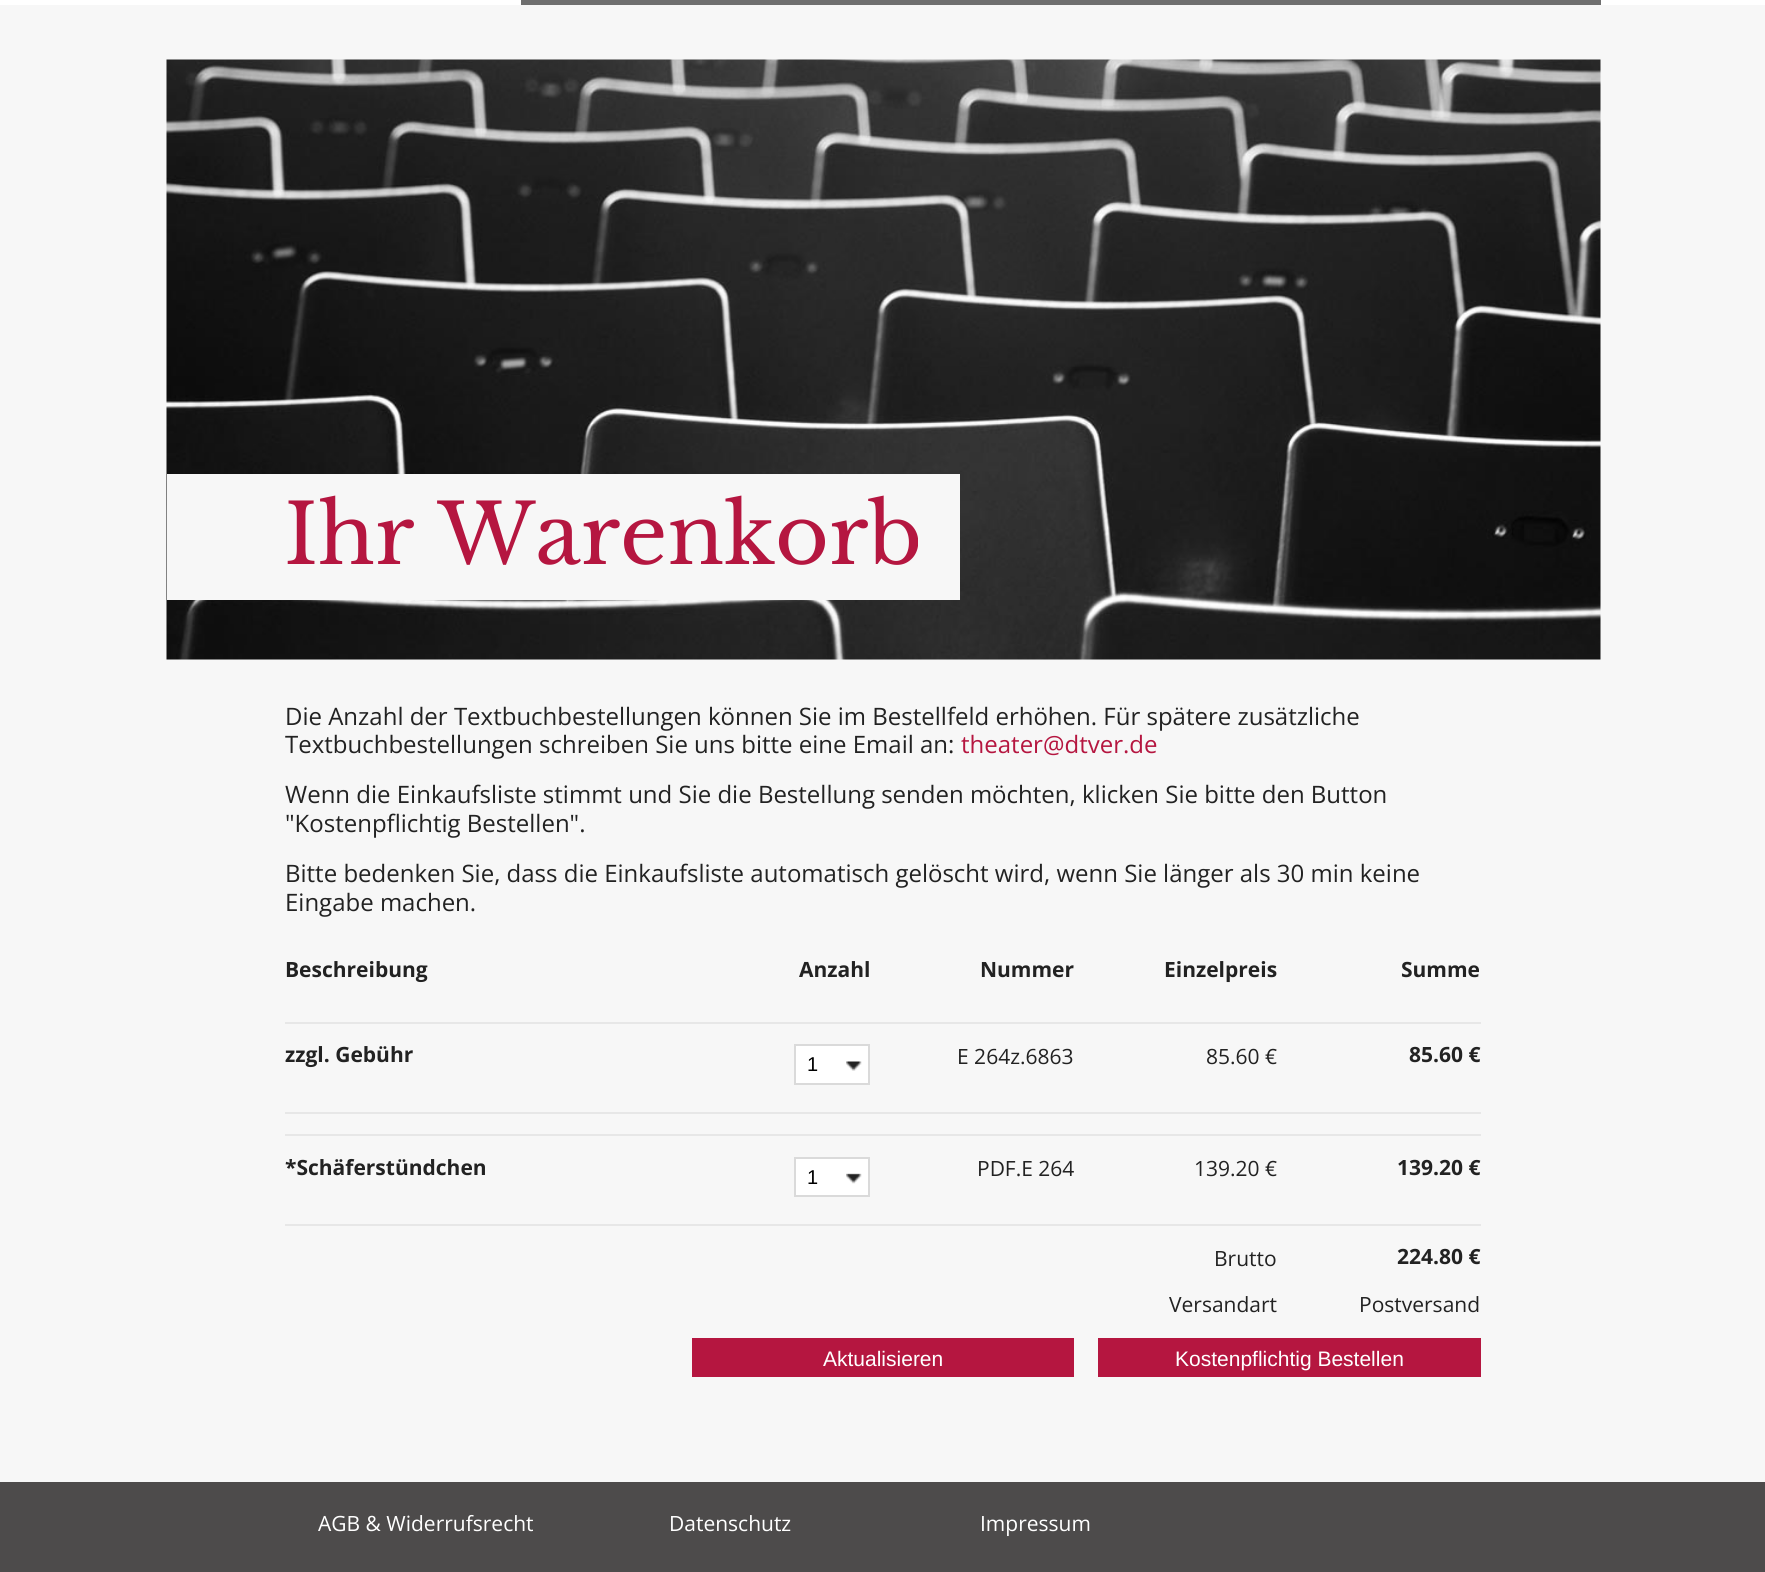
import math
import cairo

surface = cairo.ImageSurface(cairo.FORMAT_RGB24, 1765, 1572)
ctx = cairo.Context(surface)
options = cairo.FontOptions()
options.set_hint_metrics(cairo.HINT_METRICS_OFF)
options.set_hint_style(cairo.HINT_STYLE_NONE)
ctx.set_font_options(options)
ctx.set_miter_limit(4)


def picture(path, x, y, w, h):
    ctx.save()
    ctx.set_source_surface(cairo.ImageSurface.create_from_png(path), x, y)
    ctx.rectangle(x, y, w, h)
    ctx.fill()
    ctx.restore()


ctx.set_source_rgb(1, 1, 1)
ctx.paint()
ctx.set_source_rgb(0.435, 0.435, 0.435)
ctx.rectangle(521, 0, 1080, 5)
ctx.fill()
ctx.set_source_rgb(0.965, 0.965, 0.965)
ctx.rectangle(0, 5, 1765, 1477)
ctx.fill()
picture("img1.png", 166, 59, 1435, 601)
ctx.rectangle(167, 474, 793, 126)
ctx.fill()
ctx.select_font_face("Libre Baskerville")
ctx.set_font_size(82.5)
ctx.set_source_rgb(0.71, 0.086, 0.251)
ctx.move_to(284, 564)
ctx.show_text("Ihr Warenkorb")
ctx.select_font_face("Open Sans")
ctx.set_font_size(24)
ctx.set_source_rgb(0.133, 0.133, 0.133)
ctx.move_to(285, 725)
ctx.show_text("Die Anzahl der Textbuchbestellungen können Sie im Bestellfeld erhöhen. Für spätere zusätzliche")
ctx.move_to(285, 753)
ctx.show_text("Textbuchbestellungen schreiben Sie uns bitte eine Email an:")
ctx.set_source_rgb(0.71, 0.086, 0.251)
ctx.move_to(961, 753)
ctx.show_text("theater@dtver.de")
ctx.set_source_rgb(0.133, 0.133, 0.133)
ctx.move_to(285, 803)
ctx.show_text("Wenn die Einkaufsliste stimmt und Sie die Bestellung senden möchten, klicken Sie bitte den Button")
ctx.move_to(285, 832)
ctx.show_text("\"Kostenpflichtig Bestellen\".")
ctx.move_to(285, 882)
ctx.show_text("Bitte bedenken Sie, dass die Einkaufsliste automatisch gelöscht wird, wenn Sie länger als 30 min keine")
ctx.move_to(285, 911)
ctx.show_text("Eingabe machen.")
ctx.select_font_face("Open Sans", cairo.FONT_SLANT_NORMAL, cairo.FONT_WEIGHT_BOLD)
ctx.set_font_size(21)
ctx.move_to(285, 977)
ctx.show_text("Beschreibung")
ctx.move_to(799, 977)
ctx.show_text("Anzahl")
ctx.move_to(980, 977)
ctx.show_text("Nummer")
ctx.move_to(1164, 977)
ctx.show_text("Einzelpreis")
ctx.move_to(1401, 977)
ctx.show_text("Summe")
ctx.set_source_rgb(0.906, 0.906, 0.906)
ctx.rectangle(285, 1022, 1196, 2)
ctx.fill()
ctx.rectangle(285, 1112, 1196, 2)
ctx.fill()
ctx.set_source_rgb(0.133, 0.133, 0.133)
ctx.move_to(285, 1062)
ctx.show_text("zzgl. Gebühr")
ctx.set_source_rgb(1, 1, 1)
ctx.rectangle(796, 1046, 72, 37)
ctx.fill()
picture("img2.png", 846, 1061, 16, 10)
ctx.rectangle(795, 1045, 74, 39)
ctx.set_source_rgb(0.855, 0.855, 0.855)
ctx.stroke()
ctx.select_font_face("Liberation Sans")
ctx.set_font_size(20)
ctx.set_source_rgb(0, 0, 0)
ctx.move_to(807, 1071)
ctx.show_text("1")
ctx.select_font_face("Open Sans")
ctx.set_font_size(21)
ctx.set_source_rgb(0.133, 0.133, 0.133)
ctx.move_to(957, 1064)
ctx.show_text("E 264z.6863")
ctx.move_to(1206, 1064)
ctx.show_text("85.60 €")
ctx.select_font_face("Open Sans", cairo.FONT_SLANT_NORMAL, cairo.FONT_WEIGHT_BOLD)
ctx.move_to(1409, 1062)
ctx.show_text("85.60 €")
ctx.set_source_rgb(0.906, 0.906, 0.906)
ctx.rectangle(285, 1134, 1196, 2)
ctx.fill()
ctx.rectangle(285, 1224, 1196, 2)
ctx.fill()
ctx.set_source_rgb(0.133, 0.133, 0.133)
ctx.move_to(285, 1175)
ctx.show_text("*Schäferstündchen")
ctx.set_source_rgb(1, 1, 1)
ctx.rectangle(796, 1159, 72, 36)
ctx.fill()
picture("img3.png", 846, 1173, 16, 11)
ctx.rectangle(795, 1158, 74, 38)
ctx.set_source_rgb(0.855, 0.855, 0.855)
ctx.stroke()
ctx.select_font_face("Liberation Sans")
ctx.set_font_size(20)
ctx.set_source_rgb(0, 0, 0)
ctx.move_to(807, 1184)
ctx.show_text("1")
ctx.select_font_face("Open Sans")
ctx.set_font_size(21)
ctx.set_source_rgb(0.133, 0.133, 0.133)
ctx.move_to(977, 1176)
ctx.show_text("PDF.E 264")
ctx.move_to(1194, 1176)
ctx.show_text("139.20 €")
ctx.select_font_face("Open Sans", cairo.FONT_SLANT_NORMAL, cairo.FONT_WEIGHT_BOLD)
ctx.move_to(1397, 1175)
ctx.show_text("139.20 €")
ctx.select_font_face("Open Sans")
ctx.move_to(1214, 1266)
ctx.show_text("Brutto")
ctx.select_font_face("Open Sans", cairo.FONT_SLANT_NORMAL, cairo.FONT_WEIGHT_BOLD)
ctx.move_to(1397, 1264)
ctx.show_text("224.80 €")
ctx.select_font_face("Open Sans")
ctx.move_to(1169, 1312)
ctx.show_text("Versandart")
ctx.move_to(1359, 1312)
ctx.show_text("Postversand")
ctx.set_source_rgb(0.71, 0.086, 0.251)
ctx.rectangle(692, 1338, 382, 39)
ctx.fill()
ctx.select_font_face("Liberation Sans")
ctx.set_source_rgb(1, 1, 1)
ctx.move_to(823, 1366)
ctx.show_text("Aktualisieren")
ctx.set_source_rgb(0.71, 0.086, 0.251)
ctx.rectangle(1098, 1338, 383, 39)
ctx.fill()
ctx.set_source_rgb(1, 1, 1)
ctx.move_to(1175, 1366)
ctx.show_text("Kostenpflichtig Bestellen")
ctx.set_source_rgb(0.302, 0.294, 0.294)
ctx.rectangle(0, 1482, 1765, 90)
ctx.fill()
ctx.select_font_face("Open Sans")
ctx.set_source_rgb(1, 1, 1)
ctx.move_to(318, 1531)
ctx.show_text("AGB & Widerrufsrecht")
ctx.move_to(669, 1531)
ctx.show_text("Datenschutz")
ctx.move_to(980, 1531)
ctx.show_text("Impressum")
surface.write_to_png("page.png")
